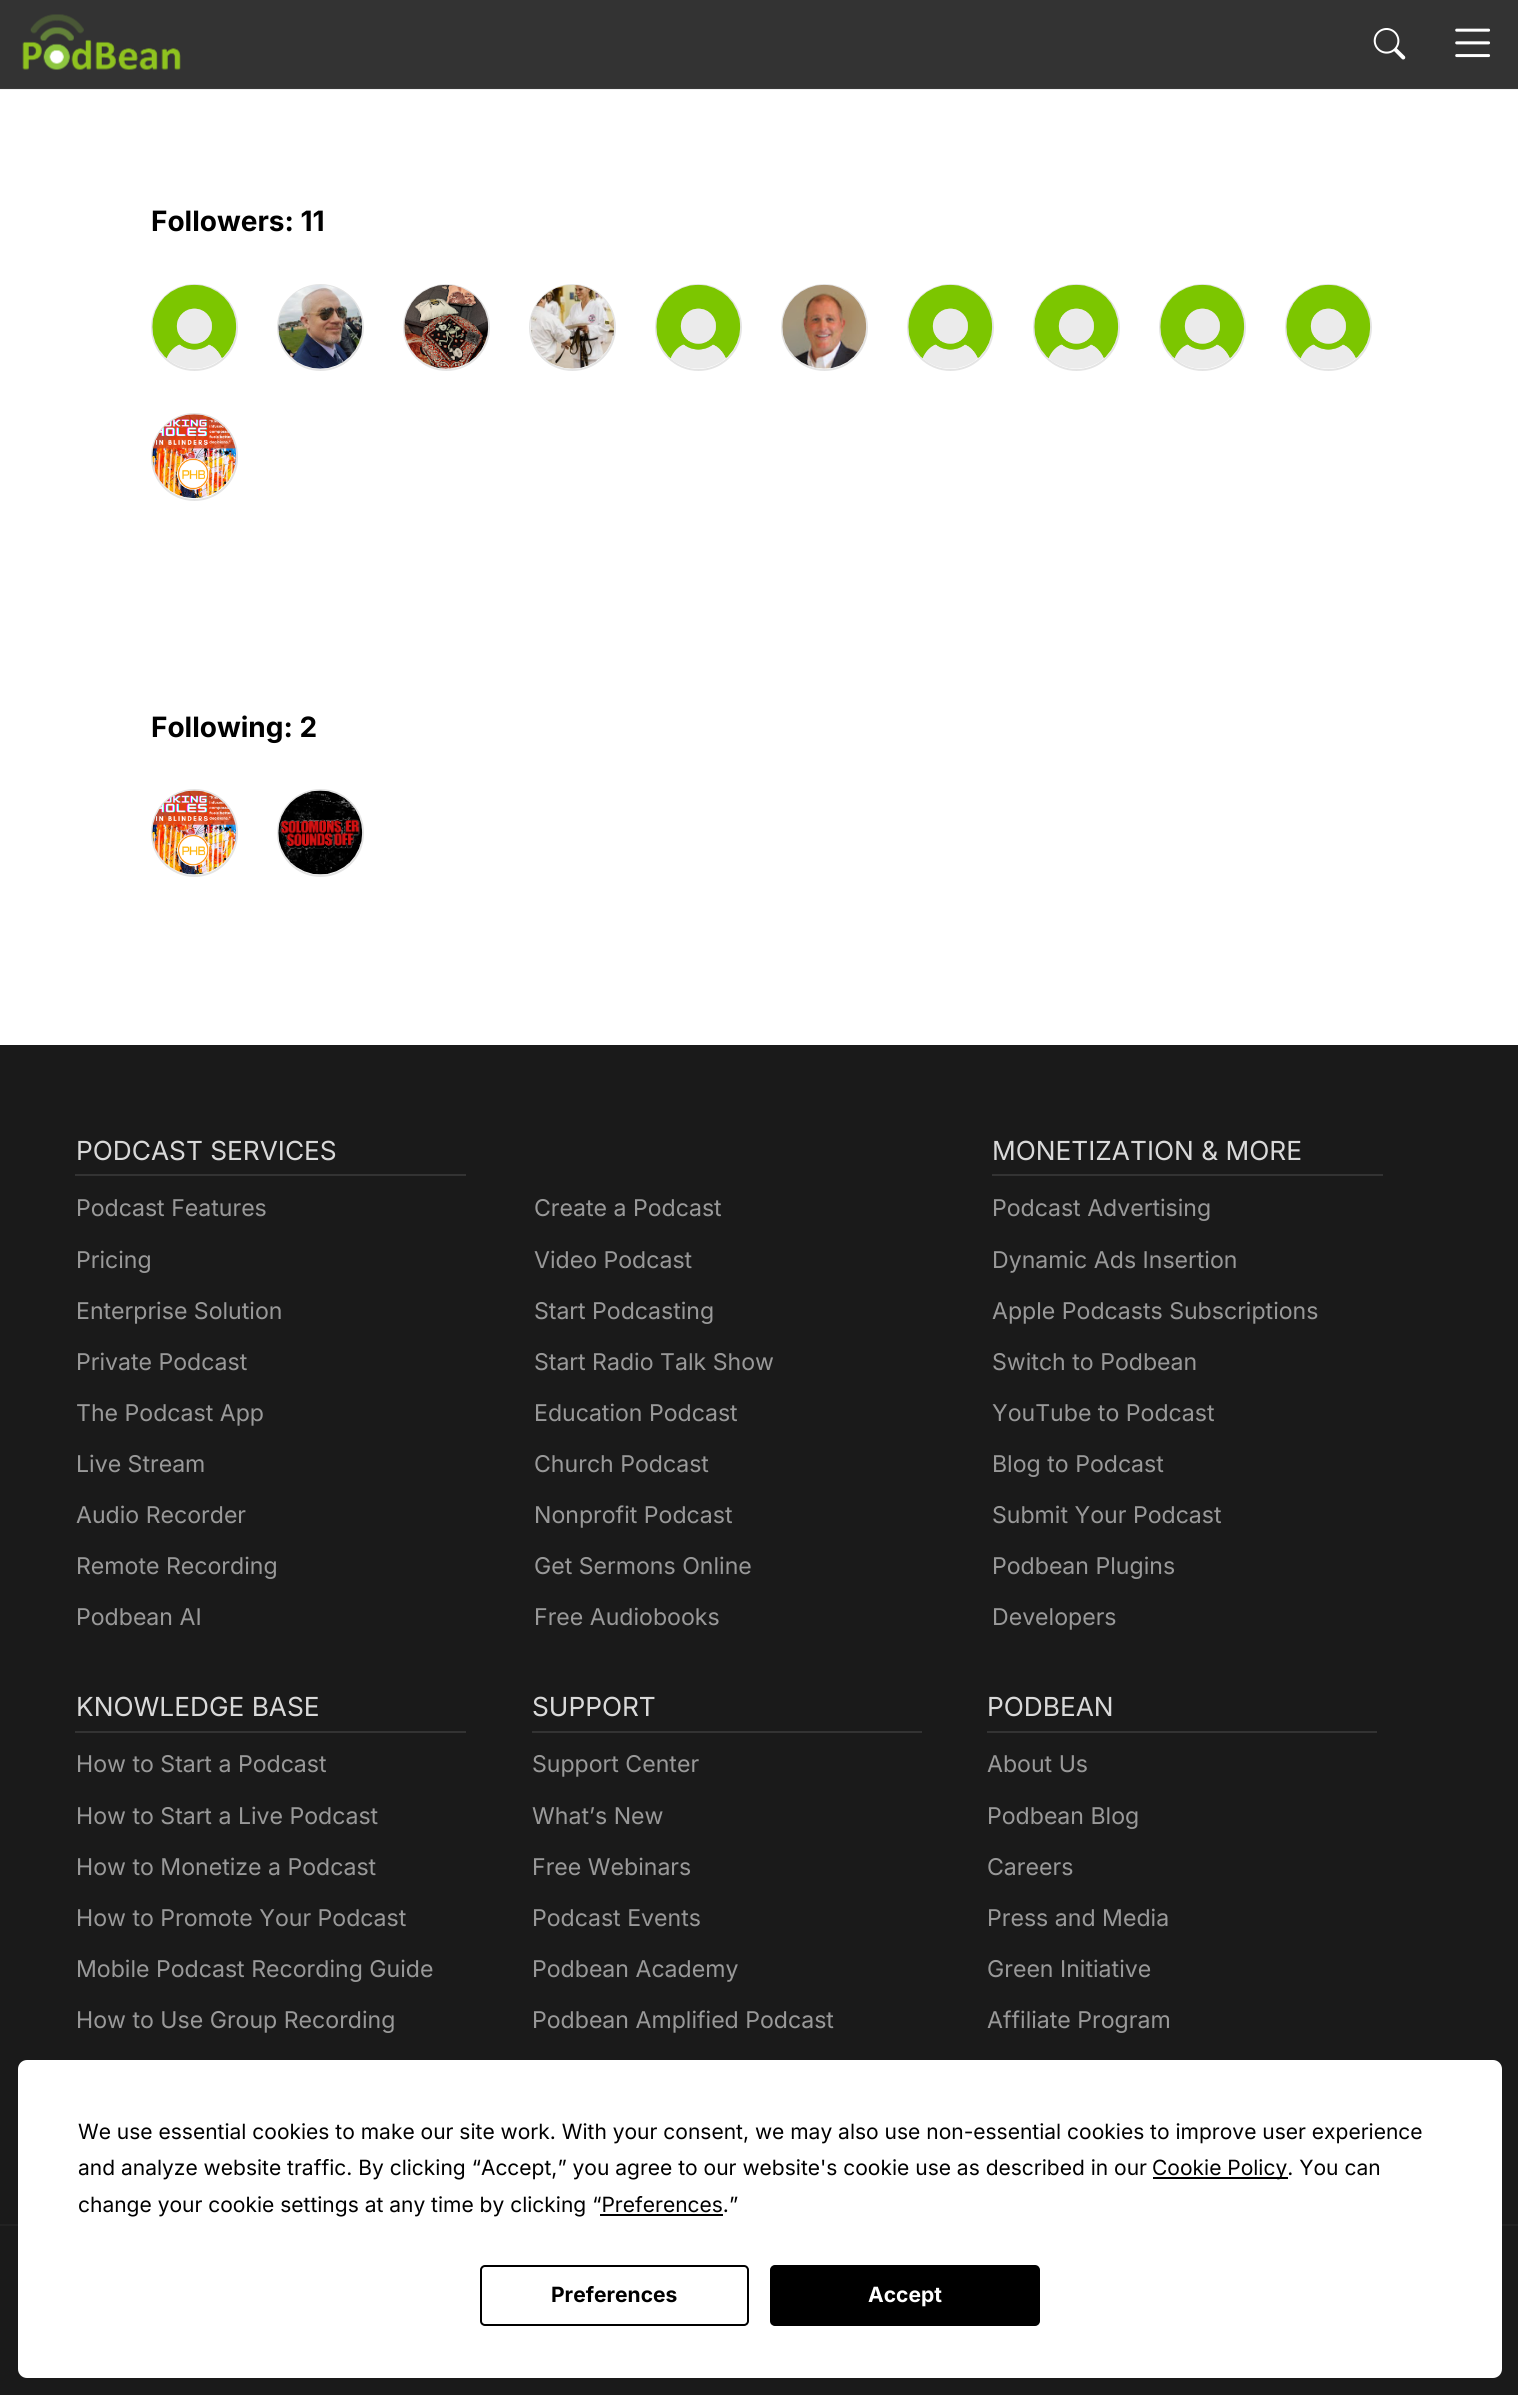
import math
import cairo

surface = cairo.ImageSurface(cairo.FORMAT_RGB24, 1518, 2395)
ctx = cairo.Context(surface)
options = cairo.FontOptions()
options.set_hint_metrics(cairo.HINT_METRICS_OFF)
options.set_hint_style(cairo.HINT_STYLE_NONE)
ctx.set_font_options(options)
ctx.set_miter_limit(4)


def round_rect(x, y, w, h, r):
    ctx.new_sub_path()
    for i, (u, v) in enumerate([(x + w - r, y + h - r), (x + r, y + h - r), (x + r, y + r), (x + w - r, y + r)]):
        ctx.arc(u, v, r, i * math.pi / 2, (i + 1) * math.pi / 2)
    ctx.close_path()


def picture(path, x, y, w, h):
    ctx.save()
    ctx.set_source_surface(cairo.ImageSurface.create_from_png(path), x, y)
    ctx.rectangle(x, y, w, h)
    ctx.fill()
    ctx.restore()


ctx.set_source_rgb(1, 1, 1)
ctx.paint()
ctx.set_source_rgb(0.945, 0.945, 0.945)
ctx.rectangle(0, 89, 1518, 1)
ctx.fill()
ctx.set_source_rgb(0.2, 0.2, 0.2)
ctx.rectangle(0, 0, 1518, 88)
ctx.fill()
ctx.set_source_rgb(0.224, 0.224, 0.224)
ctx.rectangle(0, 88, 1518, 1)
ctx.fill()
picture("img1.png", 22, 14, 159, 56)
picture("img2.png", 1373, 28, 33, 32)
picture("img3.png", 1455, 28, 36, 30)
ctx.select_font_face("Inter", cairo.FONT_SLANT_NORMAL, cairo.FONT_WEIGHT_BOLD)
ctx.set_font_size(28)
ctx.set_source_rgb(0, 0, 0)
ctx.move_to(151, 231)
ctx.show_text("Followers: 11")
ctx.new_path()
ctx.arc(194.5, 327.5, 42.5, 0, 2 * math.pi)
ctx.set_source_rgb(0.894, 0.894, 0.894)
ctx.stroke()
picture("img4.png", 152, 284, 85, 85)
ctx.arc(320.5, 327.5, 42.5, 0, 2 * math.pi)
ctx.stroke()
picture("img5.png", 278, 285, 85, 84)
ctx.arc(446.5, 327.5, 42.5, 0, 2 * math.pi)
ctx.stroke()
picture("img6.png", 404, 284, 85, 85)
ctx.arc(572.5, 327.5, 42.5, 0, 2 * math.pi)
ctx.stroke()
picture("img7.png", 530, 285, 85, 84)
ctx.arc(698.5, 327.5, 42.5, 0, 2 * math.pi)
ctx.stroke()
picture("img8.png", 656, 284, 85, 85)
ctx.arc(824.5, 327.5, 42.5, 0, 2 * math.pi)
ctx.stroke()
picture("img9.png", 782, 284, 85, 85)
ctx.arc(950.5, 327.5, 42.5, 0, 2 * math.pi)
ctx.stroke()
picture("img10.png", 908, 284, 85, 85)
ctx.arc(1076.5, 327.5, 42.5, 0, 2 * math.pi)
ctx.stroke()
picture("img11.png", 1034, 284, 85, 85)
ctx.arc(1202.5, 327.5, 42.5, 0, 2 * math.pi)
ctx.stroke()
picture("img11.png", 1160, 284, 85, 85)
ctx.arc(1328.5, 327.5, 42.5, 0, 2 * math.pi)
ctx.stroke()
picture("img12.png", 1286, 284, 85, 85)
round_rect(152, 414, 85, 86, 42.5)
ctx.stroke()
picture("img13.png", 152, 414, 85, 85)
ctx.set_source_rgb(0, 0, 0)
ctx.move_to(151, 737)
ctx.show_text("Following: 2")
round_rect(152, 790, 85, 86, 42.5)
ctx.set_source_rgb(0.894, 0.894, 0.894)
ctx.stroke()
picture("img14.png", 152, 790, 85, 85)
round_rect(278, 790, 85, 86, 42.5)
ctx.stroke()
picture("img15.png", 278, 790, 85, 85)
ctx.set_source_rgb(0.102, 0.102, 0.102)
ctx.rectangle(0, 1045, 1518, 1350)
ctx.fill()
ctx.set_source_rgb(0.2, 0.2, 0.2)
ctx.rectangle(75, 1174, 391, 2)
ctx.fill()
ctx.select_font_face("Inter")
ctx.set_font_size(26.25)
ctx.set_source_rgb(0.851, 0.851, 0.851)
ctx.move_to(76, 1160)
ctx.show_text("PODCAST SERVICES")
ctx.set_font_size(23.1)
ctx.set_source_rgb(0.6, 0.6, 0.6)
ctx.move_to(76, 1216)
ctx.show_text("Podcast Features")
ctx.move_to(76, 1268)
ctx.show_text("Pricing")
ctx.move_to(76, 1319)
ctx.show_text("Enterprise Solution")
ctx.move_to(76, 1370)
ctx.show_text("Private Podcast")
ctx.move_to(76, 1421)
ctx.show_text("The Podcast App")
ctx.move_to(76, 1472)
ctx.show_text("Live Stream")
ctx.move_to(76, 1523)
ctx.show_text("Audio Recorder")
ctx.move_to(76, 1574)
ctx.show_text("Remote Recording")
ctx.move_to(76, 1625)
ctx.show_text("Podbean AI")
ctx.move_to(534, 1216)
ctx.show_text("Create a Podcast")
ctx.move_to(534, 1268)
ctx.show_text("Video Podcast")
ctx.move_to(534, 1319)
ctx.show_text("Start Podcasting")
ctx.move_to(534, 1370)
ctx.show_text("Start Radio Talk Show")
ctx.move_to(534, 1421)
ctx.show_text("Education Podcast")
ctx.move_to(534, 1472)
ctx.show_text("Church Podcast")
ctx.move_to(534, 1523)
ctx.show_text("Nonprofit Podcast")
ctx.move_to(534, 1574)
ctx.show_text("Get Sermons Online")
ctx.move_to(534, 1625)
ctx.show_text("Free Audiobooks")
ctx.set_source_rgb(0.2, 0.2, 0.2)
ctx.rectangle(992, 1174, 391, 2)
ctx.fill()
ctx.set_font_size(26.25)
ctx.set_source_rgb(0.851, 0.851, 0.851)
ctx.move_to(992, 1160)
ctx.show_text("MONETIZATION & MORE")
ctx.set_font_size(23.1)
ctx.set_source_rgb(0.6, 0.6, 0.6)
ctx.move_to(992, 1216)
ctx.show_text("Podcast Advertising")
ctx.move_to(992, 1268)
ctx.show_text("Dynamic Ads Insertion")
ctx.move_to(992, 1319)
ctx.show_text("Apple Podcasts Subscriptions")
ctx.move_to(992, 1370)
ctx.show_text("Switch to Podbean")
ctx.move_to(992, 1421)
ctx.show_text("YouTube to Podcast")
ctx.move_to(992, 1472)
ctx.show_text("Blog to Podcast")
ctx.move_to(992, 1523)
ctx.show_text("Submit Your Podcast")
ctx.move_to(992, 1574)
ctx.show_text("Podbean Plugins")
ctx.move_to(992, 1625)
ctx.show_text("Developers")
ctx.set_source_rgb(0.2, 0.2, 0.2)
ctx.rectangle(75, 1731, 391, 2)
ctx.fill()
ctx.set_font_size(26.25)
ctx.set_source_rgb(0.851, 0.851, 0.851)
ctx.move_to(76, 1716)
ctx.show_text("KNOWLEDGE BASE")
ctx.set_font_size(23.1)
ctx.set_source_rgb(0.6, 0.6, 0.6)
ctx.move_to(76, 1772)
ctx.show_text("How to Start a Podcast")
ctx.move_to(76, 1824)
ctx.show_text("How to Start a Live Podcast")
ctx.move_to(76, 1875)
ctx.show_text("How to Monetize a Podcast")
ctx.move_to(76, 1926)
ctx.show_text("How to Promote Your Podcast")
ctx.move_to(76, 1977)
ctx.show_text("Mobile Podcast Recording Guide")
ctx.move_to(76, 2028)
ctx.show_text("How to Use Group Recording")
ctx.set_source_rgb(0.2, 0.2, 0.2)
ctx.rectangle(532, 1731, 390, 2)
ctx.fill()
ctx.set_font_size(26.25)
ctx.set_source_rgb(0.851, 0.851, 0.851)
ctx.move_to(532, 1716)
ctx.show_text("SUPPORT")
ctx.set_font_size(23.1)
ctx.set_source_rgb(0.6, 0.6, 0.6)
ctx.move_to(532, 1772)
ctx.show_text("Support Center")
ctx.move_to(532, 1824)
ctx.show_text("What’s New")
ctx.move_to(532, 1875)
ctx.show_text("Free Webinars")
ctx.move_to(532, 1926)
ctx.show_text("Podcast Events")
ctx.move_to(532, 1977)
ctx.show_text("Podbean Academy")
ctx.move_to(532, 2028)
ctx.show_text("Podbean Amplified Podcast")
ctx.set_source_rgb(0.2, 0.2, 0.2)
ctx.rectangle(987, 1731, 390, 2)
ctx.fill()
ctx.set_font_size(26.25)
ctx.set_source_rgb(0.851, 0.851, 0.851)
ctx.move_to(987, 1716)
ctx.show_text("PODBEAN")
ctx.set_font_size(23.1)
ctx.set_source_rgb(0.6, 0.6, 0.6)
ctx.move_to(987, 1772)
ctx.show_text("About Us")
ctx.move_to(987, 1824)
ctx.show_text("Podbean Blog")
ctx.move_to(987, 1875)
ctx.show_text("Careers")
ctx.move_to(987, 1926)
ctx.show_text("Press and Media")
ctx.move_to(987, 1977)
ctx.show_text("Green Initiative")
ctx.move_to(987, 2028)
ctx.show_text("Affiliate Program")
ctx.set_source_rgb(0.133, 0.133, 0.133)
ctx.rectangle(0, 2224, 1518, 2)
ctx.fill()
ctx.set_source_rgb(1, 1, 1)
round_rect(18, 2060, 1484, 318, 9)
ctx.fill()
ctx.set_font_size(21)
ctx.set_source_rgb(0, 0, 0)
ctx.move_to(78, 2139)
ctx.show_text("We use essential cookies to make our site work. With your consent, we may also use non-essential cookies to improve user experience")
ctx.move_to(78, 2175)
ctx.show_text("and analyze website traffic. By clicking “Accept,” you agree to our website's cookie use as described in our")
ctx.rectangle(1153, 2177, 135, 2)
ctx.fill()
ctx.move_to(1152, 2175)
ctx.show_text("Cookie Policy. You can")
ctx.move_to(78, 2212)
ctx.show_text("change your cookie settings at any time by clicking “Preferences.”")
ctx.rectangle(600, 2214, 123, 2)
ctx.fill()
round_rect(481, 2266, 267, 59, 4)
ctx.stroke()
ctx.select_font_face("Inter", cairo.FONT_SLANT_NORMAL, cairo.FONT_WEIGHT_BOLD)
ctx.move_to(551, 2302)
ctx.show_text("Preferences")
round_rect(771, 2266, 268, 59, 4)
ctx.fill_preserve()
ctx.stroke()
ctx.set_source_rgb(1, 1, 1)
ctx.move_to(868, 2302)
ctx.show_text("Accept")
surface.write_to_png("page.png")
